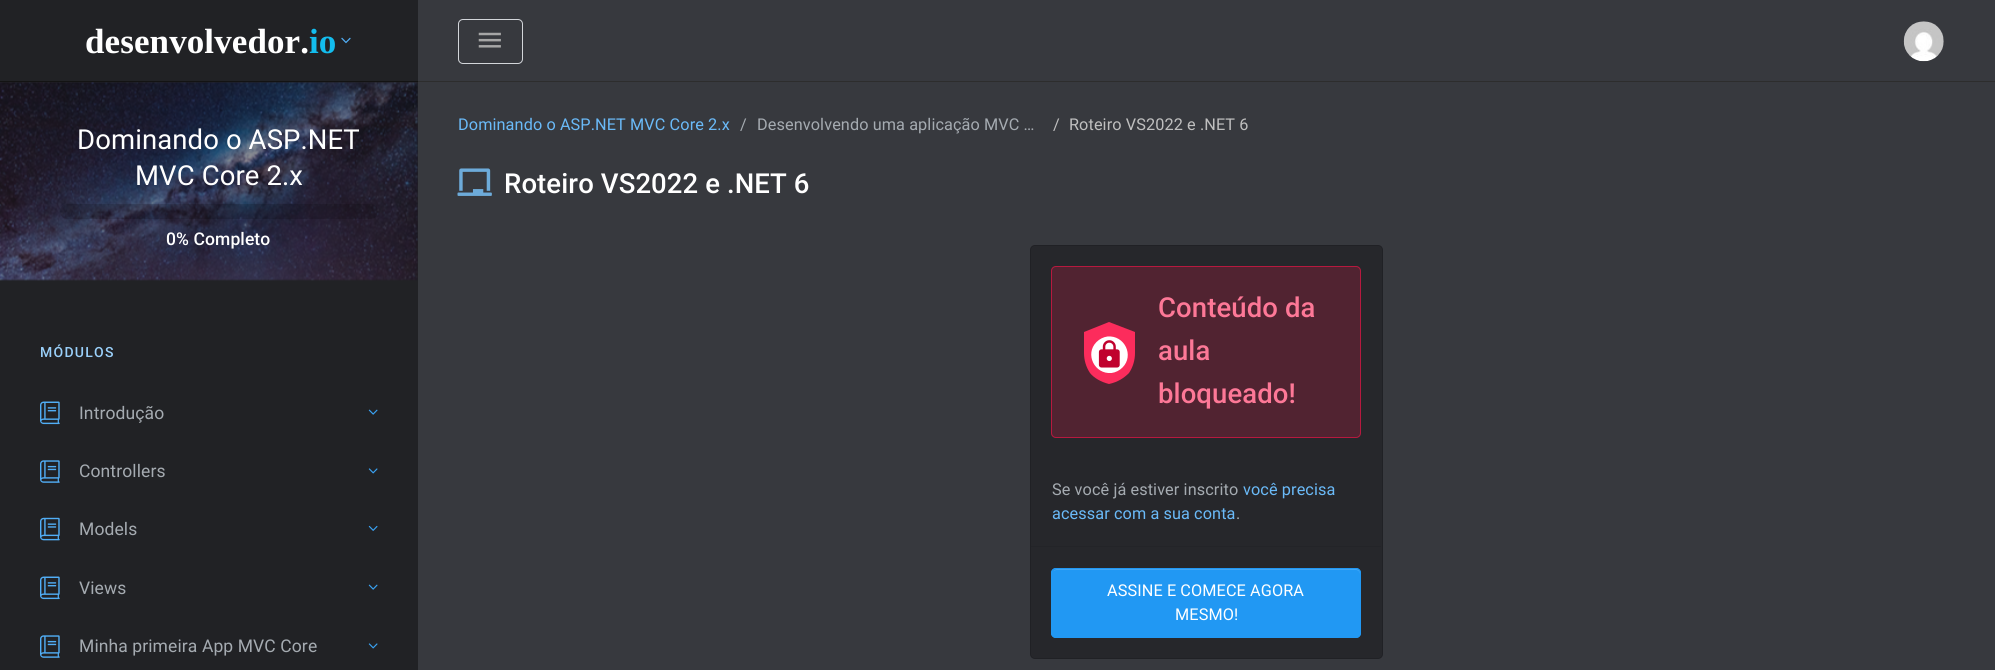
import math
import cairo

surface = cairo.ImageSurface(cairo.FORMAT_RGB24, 1995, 670)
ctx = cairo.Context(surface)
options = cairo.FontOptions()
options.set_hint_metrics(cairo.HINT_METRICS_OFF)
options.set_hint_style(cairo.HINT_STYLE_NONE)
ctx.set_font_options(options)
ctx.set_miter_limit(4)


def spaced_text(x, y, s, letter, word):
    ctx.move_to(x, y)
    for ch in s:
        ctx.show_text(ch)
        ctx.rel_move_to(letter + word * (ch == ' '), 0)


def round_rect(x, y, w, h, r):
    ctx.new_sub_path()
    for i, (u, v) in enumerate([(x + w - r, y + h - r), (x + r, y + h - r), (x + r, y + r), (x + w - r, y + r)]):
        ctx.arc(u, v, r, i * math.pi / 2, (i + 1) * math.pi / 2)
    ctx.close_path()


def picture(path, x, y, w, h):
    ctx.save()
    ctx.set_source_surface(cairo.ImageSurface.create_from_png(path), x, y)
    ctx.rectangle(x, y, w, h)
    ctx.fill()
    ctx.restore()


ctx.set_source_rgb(0.216, 0.224, 0.243)
ctx.paint()
ctx.set_source_rgb(0.129, 0.133, 0.145)
ctx.rectangle(0, 0, 418, 670)
ctx.fill()
ctx.set_source_rgb(0.075, 0.075, 0.075)
ctx.rectangle(0, 81, 418, 1)
ctx.fill()
ctx.select_font_face("Liberation Serif", cairo.FONT_SLANT_NORMAL, cairo.FONT_WEIGHT_BOLD)
ctx.set_font_size(35)
ctx.set_source_rgb(1, 1, 1)
spaced_text(85, 53, "desenvolvedor.", 0.1, 0)
ctx.set_source_rgb(0.078, 0.741, 0.933)
spaced_text(309, 53, "io", 0.1, 0)
picture("img1.png", 341, 37, 10, 7)
picture("img2.png", 0, 82, 418, 199)
ctx.select_font_face("Roboto")
ctx.set_font_size(27.5)
ctx.set_source_rgb(1, 1, 1)
spaced_text(77, 149, "Dominando o ASP.NET", 0.1, 0)
spaced_text(135, 185, "MVC Core 2.x", 0.1, 0)
ctx.set_source_rgba(0, 0, 0, 0.15)
round_rect(60, 204, 318, 15, 7.5)
ctx.fill()
ctx.select_font_face("Roboto Medium")
ctx.set_font_size(17.5)
ctx.set_source_rgb(1, 1, 1)
spaced_text(166, 245, "0% Completo", 0.1, 0)
ctx.set_font_size(14)
ctx.set_source_rgb(0.604, 0.816, 0.98)
spaced_text(40, 357, "MÓDULOS", 1.25, 0)
picture("img3.png", 40, 401, 20, 24)
ctx.select_font_face("Roboto")
ctx.set_font_size(17.5)
ctx.set_source_rgb(0.647, 0.671, 0.694)
spaced_text(79, 419, "Introdução", 0.1, 0)
picture("img4.png", 368, 409, 10, 6)
picture("img5.png", 40, 460, 20, 23)
spaced_text(79, 477, "Controllers", 0.1, 0)
picture("img6.png", 368, 468, 10, 6)
picture("img7.png", 40, 517, 20, 24)
spaced_text(79, 535, "Models", 0.1, 0)
picture("img8.png", 368, 525, 10, 6)
picture("img3.png", 40, 576, 20, 24)
spaced_text(79, 594, "Views", 0.1, 0)
picture("img4.png", 368, 584, 10, 6)
picture("img5.png", 40, 635, 20, 23)
spaced_text(79, 652, "Minha primeira App MVC Core", 0.1, 0)
picture("img6.png", 368, 643, 10, 6)
ctx.set_source_rgb(0.176, 0.176, 0.176)
ctx.rectangle(418, 81, 1577, 1)
ctx.fill()
round_rect(458.5, 19.5, 64, 44, 4.5)
ctx.set_source_rgb(0.827, 0.839, 0.855)
ctx.set_line_width(1)
ctx.stroke()
picture("img9.png", 478, 32, 23, 16)
picture("img10.png", 1903, 21, 41, 41)
ctx.set_font_size(16.25)
ctx.set_source_rgb(0.416, 0.729, 0.969)
spaced_text(458, 130, "Dominando o ASP.NET MVC Core 2.x", 0.1, 0)
ctx.set_source_rgb(0.647, 0.671, 0.694)
spaced_text(740, 130, "/", 0.1, 0)
spaced_text(757, 130, "Desenvolvendo uma aplicação MVC …", 0.1, 0)
ctx.set_source_rgb(0.749, 0.749, 0.749)
spaced_text(1053, 130, "/", 0.1, 0)
spaced_text(1069, 130, "Roteiro VS2022 e .NET 6", 0.1, 0)
picture("img11.png", 457, 168, 35, 28)
ctx.select_font_face("Roboto Medium")
ctx.set_font_size(27.5)
ctx.set_source_rgb(1, 1, 1)
spaced_text(504, 193, "Roteiro VS2022 e .NET 6", 0.1, 0)
ctx.set_source_rgb(0.149, 0.153, 0.169)
round_rect(1030, 245, 353, 414, 5)
ctx.fill()
round_rect(1030.5, 245.5, 352, 413, 4.5)
ctx.set_source_rgba(0, 0, 0, 0.15)
ctx.stroke()
ctx.set_source_rgb(0.318, 0.137, 0.192)
round_rect(1051, 266, 310, 172, 5)
ctx.fill()
round_rect(1051.5, 266.5, 309, 171, 4.5)
ctx.set_source_rgba(0.988, 0.075, 0.286, 0.6)
ctx.stroke()
ctx.set_source_rgb(0.988, 0.173, 0.361)
ctx.new_path()
ctx.move_to(1109, 322)
ctx.line_to(1135, 332)
ctx.line_to(1135, 353)
ctx.curve_to(1135, 360, 1133, 367, 1129, 373)
ctx.curve_to(1124, 378, 1118, 382, 1109, 384)
ctx.curve_to(1101, 382, 1094, 378, 1090, 373)
ctx.curve_to(1086, 367, 1084, 360, 1084, 353)
ctx.line_to(1084, 332)
ctx.close_path()
ctx.fill()
ctx.set_source_rgb(1, 1, 1)
ctx.new_path()
ctx.move_to(1096.5, 342)
ctx.curve_to(1099.5, 339, 1103.5, 337, 1107.5, 336.5)
ctx.curve_to(1124.5, 335, 1134.5, 355.5, 1122.5, 367.5)
ctx.curve_to(1119.5, 370.5, 1115.5, 372.5, 1111.5, 373)
ctx.curve_to(1094.5, 374.5, 1084.5, 354, 1096.5, 342)
ctx.close_path()
ctx.fill()
picture("img12.png", 1098, 340, 22, 28)
ctx.set_source_rgb(0.992, 0.471, 0.592)
spaced_text(1158, 317, "Conteúdo da", 0.1, 0)
spaced_text(1158, 360, "aula", 0.1, 0)
spaced_text(1158, 403, "bloqueado!", 0.1, 0)
ctx.select_font_face("Roboto")
ctx.set_font_size(16.25)
ctx.set_source_rgb(0.647, 0.671, 0.694)
spaced_text(1052, 495, "Se você já estiver inscrito", 0.1, 0)
ctx.set_source_rgb(0.416, 0.729, 0.969)
spaced_text(1243, 495, "você precisa", 0.1, 0)
spaced_text(1052, 519, "acessar com a sua conta", 0.1, 0)
ctx.set_source_rgb(0.647, 0.671, 0.694)
spaced_text(1236, 519, ".", 0.1, 0)
ctx.set_source_rgb(0.137, 0.141, 0.157)
ctx.rectangle(1031, 546, 350, 1)
ctx.fill()
ctx.set_source_rgb(0.129, 0.596, 0.953)
round_rect(1051, 568, 310, 70, 5)
ctx.fill()
ctx.set_source_rgb(0.259, 0.655, 0.961)
ctx.new_path()
ctx.move_to(1056, 570)
ctx.line_to(1356, 570)
ctx.curve_to(1358, 570, 1360, 572, 1360, 574)
ctx.line_to(1360, 573)
ctx.curve_to(1360, 571, 1358, 569, 1356, 569)
ctx.line_to(1057, 569)
ctx.curve_to(1056, 569, 1054, 570, 1054, 571)
ctx.close_path()
ctx.fill()
round_rect(1051.5, 568.5, 309, 69, 4.5)
ctx.set_source_rgb(0.129, 0.596, 0.953)
ctx.stroke()
ctx.set_source_rgb(1, 1, 1)
spaced_text(1107, 596, "ASSINE E COMECE AGORA", 0.1, 0)
spaced_text(1175, 620, "MESMO!", 0.1, 0)
surface.write_to_png("page.png")
